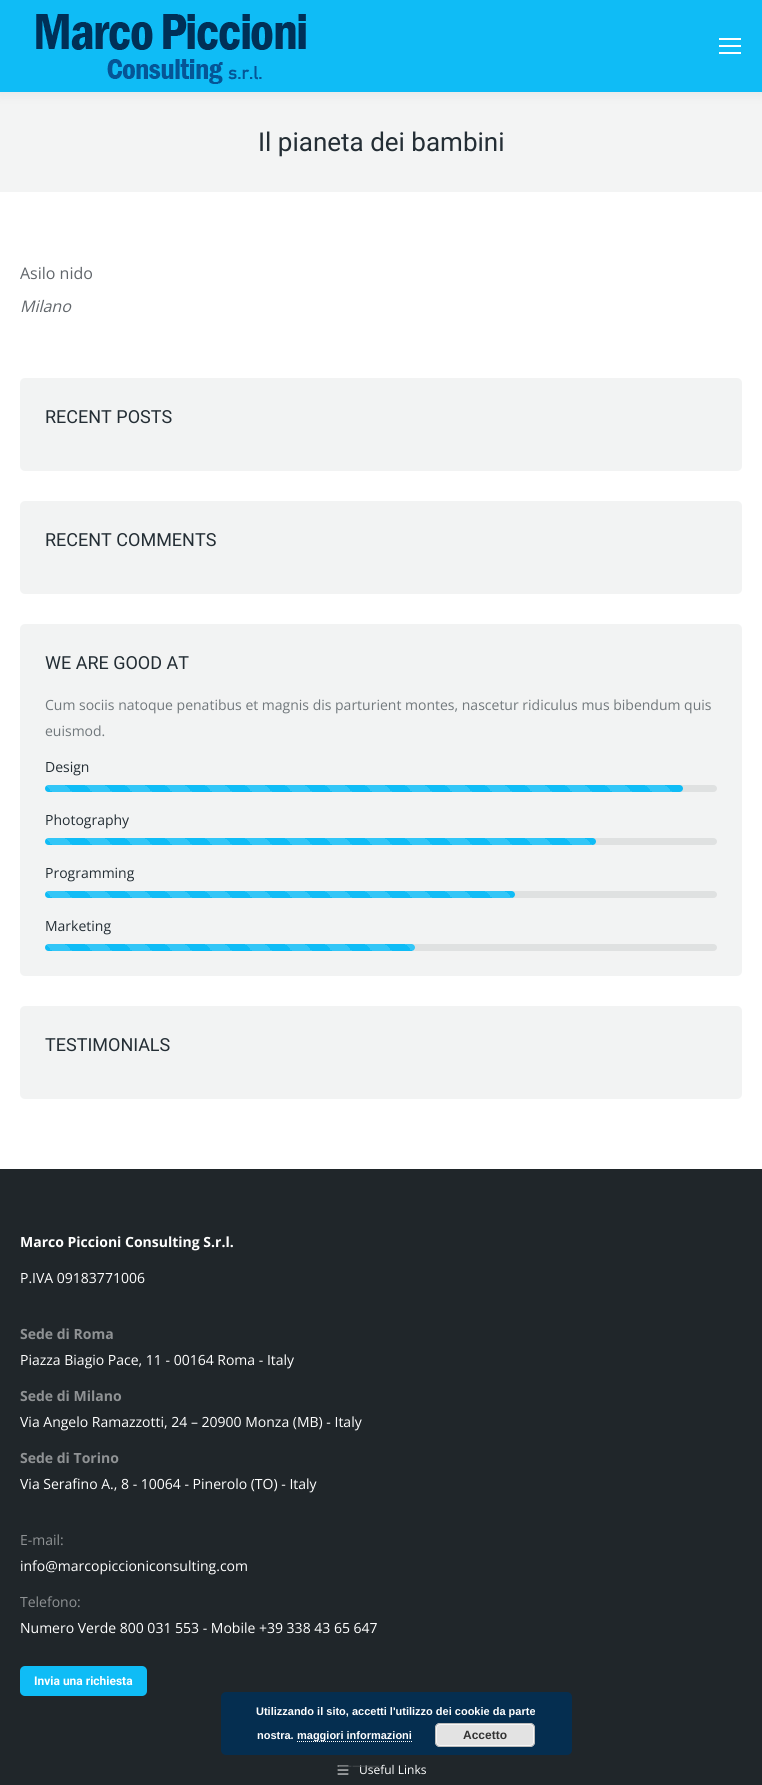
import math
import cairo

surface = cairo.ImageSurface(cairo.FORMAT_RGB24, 762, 1785)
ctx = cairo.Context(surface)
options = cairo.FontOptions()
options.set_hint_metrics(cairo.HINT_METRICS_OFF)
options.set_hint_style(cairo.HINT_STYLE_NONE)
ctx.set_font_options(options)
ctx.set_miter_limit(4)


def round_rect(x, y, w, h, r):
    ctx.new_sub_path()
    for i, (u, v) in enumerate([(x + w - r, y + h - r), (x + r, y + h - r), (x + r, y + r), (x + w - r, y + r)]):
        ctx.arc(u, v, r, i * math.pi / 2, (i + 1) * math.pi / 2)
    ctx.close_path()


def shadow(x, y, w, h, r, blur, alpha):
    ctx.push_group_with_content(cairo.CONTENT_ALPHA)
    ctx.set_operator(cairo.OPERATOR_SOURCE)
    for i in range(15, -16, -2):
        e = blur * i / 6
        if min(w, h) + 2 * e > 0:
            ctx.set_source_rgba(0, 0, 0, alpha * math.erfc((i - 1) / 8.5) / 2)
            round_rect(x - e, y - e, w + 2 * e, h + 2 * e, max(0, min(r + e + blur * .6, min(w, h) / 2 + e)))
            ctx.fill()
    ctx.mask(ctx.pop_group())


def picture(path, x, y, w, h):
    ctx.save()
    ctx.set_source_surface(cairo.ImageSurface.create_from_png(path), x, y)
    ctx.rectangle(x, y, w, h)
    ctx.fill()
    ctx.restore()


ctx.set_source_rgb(1, 1, 1)
ctx.paint()
ctx.set_source_rgb(0.953, 0.957, 0.957)
ctx.rectangle(0, 92, 762, 100)
ctx.fill()
ctx.set_source_rgb(0, 0, 0)
shadow(-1, -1, 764, 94, 0, 7.5, 0.07)
ctx.set_source_rgb(0.059, 0.737, 0.961)
ctx.rectangle(0, 0, 762, 92)
ctx.fill()
picture("img1.png", 36, 14, 270, 70)
ctx.set_source_rgb(1, 1, 1)
ctx.rectangle(719, 38, 22, 2)
ctx.fill()
ctx.rectangle(719, 45, 22, 2)
ctx.fill()
ctx.rectangle(719, 52, 22, 2)
ctx.fill()
ctx.select_font_face("Roboto")
ctx.set_font_size(26)
ctx.set_source_rgb(0.141, 0.18, 0.208)
ctx.move_to(258, 151)
ctx.show_text("Il pianeta dei bambini")
ctx.select_font_face("Open Sans")
ctx.set_font_size(16)
ctx.set_source_rgb(0.38, 0.4, 0.42)
ctx.move_to(20, 279)
ctx.show_text("Asilo nido")
ctx.select_font_face("Open Sans", cairo.FONT_SLANT_ITALIC)
ctx.move_to(20, 312)
ctx.show_text("Milano")
ctx.set_source_rgb(0.949, 0.953, 0.953)
round_rect(20, 378, 722, 93, 5)
ctx.fill()
ctx.select_font_face("Roboto")
ctx.set_font_size(18)
ctx.set_source_rgb(0.141, 0.18, 0.208)
ctx.move_to(45, 423)
ctx.show_text("RECENT POSTS")
ctx.set_source_rgb(0.949, 0.953, 0.953)
round_rect(20, 501, 722, 93, 5)
ctx.fill()
ctx.set_source_rgb(0.141, 0.18, 0.208)
ctx.move_to(45, 546)
ctx.show_text("RECENT COMMENTS")
ctx.set_source_rgb(0.949, 0.953, 0.953)
round_rect(20, 624, 722, 352, 5)
ctx.fill()
ctx.set_source_rgb(0.141, 0.18, 0.208)
ctx.move_to(45, 669)
ctx.show_text("WE ARE GOOD AT")
ctx.select_font_face("Open Sans")
ctx.set_font_size(14)
ctx.set_source_rgb(0.443, 0.471, 0.486)
ctx.move_to(45, 710)
ctx.show_text("Cum sociis natoque penatibus et magnis dis parturient montes, nascetur ridiculus mus bibendum quis")
ctx.move_to(45, 736)
ctx.show_text("euismod.")
ctx.set_source_rgb(0.141, 0.18, 0.208)
ctx.move_to(45, 772)
ctx.show_text("Design")
ctx.set_source_rgb(0.875, 0.882, 0.882)
round_rect(45, 785, 672, 7, 3.5)
ctx.fill()
ctx.set_source_rgb(0.059, 0.737, 0.961)
round_rect(45, 785, 638, 7, 3.5)
ctx.fill()
gradient = cairo.LinearGradient(45, 825, 85, 785)
gradient.add_color_stop_rgba(0.25, 1, 1, 1, 0.15)
gradient.add_color_stop_rgba(0.25, 1, 1, 1, 0)
gradient.add_color_stop_rgba(0.5, 1, 1, 1, 0)
gradient.add_color_stop_rgba(0.5, 1, 1, 1, 0.15)
gradient.add_color_stop_rgba(0.75, 1, 1, 1, 0.15)
gradient.add_color_stop_rgba(0.75, 1, 1, 1, 0)
gradient.add_color_stop_rgba(1, 0, 0, 0, 0)
ctx.set_source(gradient)
ctx.rectangle(45, 785, 27, 7)
ctx.fill()
gradient = cairo.LinearGradient(85, 825, 125, 785)
gradient.add_color_stop_rgba(0.25, 0.2, 0.776, 0.969, 1)
gradient.add_color_stop_rgba(0.25, 0.059, 0.737, 0.961, 1)
gradient.add_color_stop_rgba(0.5, 0.059, 0.737, 0.961, 1)
gradient.add_color_stop_rgba(0.5, 0.2, 0.776, 0.969, 1)
gradient.add_color_stop_rgba(0.75, 0.2, 0.776, 0.969, 1)
gradient.add_color_stop_rgba(0.75, 0.059, 0.737, 0.961, 1)
gradient.add_color_stop_rgba(1, 0.059, 0.737, 0.961, 1)
ctx.set_source(gradient)
ctx.rectangle(85, 785, 27, 7)
ctx.fill()
gradient = cairo.LinearGradient(125, 825, 165, 785)
gradient.add_color_stop_rgba(0.25, 0.2, 0.776, 0.969, 1)
gradient.add_color_stop_rgba(0.25, 0.059, 0.737, 0.961, 1)
gradient.add_color_stop_rgba(0.5, 0.059, 0.737, 0.961, 1)
gradient.add_color_stop_rgba(0.5, 0.2, 0.776, 0.969, 1)
gradient.add_color_stop_rgba(0.75, 0.2, 0.776, 0.969, 1)
gradient.add_color_stop_rgba(0.75, 0.059, 0.737, 0.961, 1)
gradient.add_color_stop_rgba(1, 0.059, 0.737, 0.961, 1)
ctx.set_source(gradient)
ctx.rectangle(125, 785, 27, 7)
ctx.fill()
gradient = cairo.LinearGradient(165, 825, 205, 785)
gradient.add_color_stop_rgba(0.25, 0.2, 0.776, 0.969, 1)
gradient.add_color_stop_rgba(0.25, 0.059, 0.737, 0.961, 1)
gradient.add_color_stop_rgba(0.5, 0.059, 0.737, 0.961, 1)
gradient.add_color_stop_rgba(0.5, 0.2, 0.776, 0.969, 1)
gradient.add_color_stop_rgba(0.75, 0.2, 0.776, 0.969, 1)
gradient.add_color_stop_rgba(0.75, 0.059, 0.737, 0.961, 1)
gradient.add_color_stop_rgba(1, 0.059, 0.737, 0.961, 1)
ctx.set_source(gradient)
ctx.rectangle(165, 785, 27, 7)
ctx.fill()
gradient = cairo.LinearGradient(205, 825, 245, 785)
gradient.add_color_stop_rgba(0.25, 0.2, 0.776, 0.969, 1)
gradient.add_color_stop_rgba(0.25, 0.059, 0.737, 0.961, 1)
gradient.add_color_stop_rgba(0.5, 0.059, 0.737, 0.961, 1)
gradient.add_color_stop_rgba(0.5, 0.2, 0.776, 0.969, 1)
gradient.add_color_stop_rgba(0.75, 0.2, 0.776, 0.969, 1)
gradient.add_color_stop_rgba(0.75, 0.059, 0.737, 0.961, 1)
gradient.add_color_stop_rgba(1, 0.059, 0.737, 0.961, 1)
ctx.set_source(gradient)
ctx.rectangle(205, 785, 27, 7)
ctx.fill()
gradient = cairo.LinearGradient(245, 825, 285, 785)
gradient.add_color_stop_rgba(0.25, 0.2, 0.776, 0.969, 1)
gradient.add_color_stop_rgba(0.25, 0.059, 0.737, 0.961, 1)
gradient.add_color_stop_rgba(0.5, 0.059, 0.737, 0.961, 1)
gradient.add_color_stop_rgba(0.5, 0.2, 0.776, 0.969, 1)
gradient.add_color_stop_rgba(0.75, 0.2, 0.776, 0.969, 1)
gradient.add_color_stop_rgba(0.75, 0.059, 0.737, 0.961, 1)
gradient.add_color_stop_rgba(1, 0.059, 0.737, 0.961, 1)
ctx.set_source(gradient)
ctx.rectangle(245, 785, 27, 7)
ctx.fill()
gradient = cairo.LinearGradient(285, 825, 325, 785)
gradient.add_color_stop_rgba(0.25, 0.2, 0.776, 0.969, 1)
gradient.add_color_stop_rgba(0.25, 0.059, 0.737, 0.961, 1)
gradient.add_color_stop_rgba(0.5, 0.059, 0.737, 0.961, 1)
gradient.add_color_stop_rgba(0.5, 0.2, 0.776, 0.969, 1)
gradient.add_color_stop_rgba(0.75, 0.2, 0.776, 0.969, 1)
gradient.add_color_stop_rgba(0.75, 0.059, 0.737, 0.961, 1)
gradient.add_color_stop_rgba(1, 0.059, 0.737, 0.961, 1)
ctx.set_source(gradient)
ctx.rectangle(285, 785, 27, 7)
ctx.fill()
gradient = cairo.LinearGradient(325, 825, 365, 785)
gradient.add_color_stop_rgba(0.25, 0.2, 0.776, 0.969, 1)
gradient.add_color_stop_rgba(0.25, 0.059, 0.737, 0.961, 1)
gradient.add_color_stop_rgba(0.5, 0.059, 0.737, 0.961, 1)
gradient.add_color_stop_rgba(0.5, 0.2, 0.776, 0.969, 1)
gradient.add_color_stop_rgba(0.75, 0.2, 0.776, 0.969, 1)
gradient.add_color_stop_rgba(0.75, 0.059, 0.737, 0.961, 1)
gradient.add_color_stop_rgba(1, 0.059, 0.737, 0.961, 1)
ctx.set_source(gradient)
ctx.rectangle(325, 785, 27, 7)
ctx.fill()
gradient = cairo.LinearGradient(365, 825, 405, 785)
gradient.add_color_stop_rgba(0.25, 0.2, 0.776, 0.969, 1)
gradient.add_color_stop_rgba(0.25, 0.059, 0.737, 0.961, 1)
gradient.add_color_stop_rgba(0.5, 0.059, 0.737, 0.961, 1)
gradient.add_color_stop_rgba(0.5, 0.2, 0.776, 0.969, 1)
gradient.add_color_stop_rgba(0.75, 0.2, 0.776, 0.969, 1)
gradient.add_color_stop_rgba(0.75, 0.059, 0.737, 0.961, 1)
gradient.add_color_stop_rgba(1, 0.059, 0.737, 0.961, 1)
ctx.set_source(gradient)
ctx.rectangle(365, 785, 27, 7)
ctx.fill()
gradient = cairo.LinearGradient(405, 825, 445, 785)
gradient.add_color_stop_rgba(0.25, 0.2, 0.776, 0.969, 1)
gradient.add_color_stop_rgba(0.25, 0.059, 0.737, 0.961, 1)
gradient.add_color_stop_rgba(0.5, 0.059, 0.737, 0.961, 1)
gradient.add_color_stop_rgba(0.5, 0.2, 0.776, 0.969, 1)
gradient.add_color_stop_rgba(0.75, 0.2, 0.776, 0.969, 1)
gradient.add_color_stop_rgba(0.75, 0.059, 0.737, 0.961, 1)
gradient.add_color_stop_rgba(1, 0.059, 0.737, 0.961, 1)
ctx.set_source(gradient)
ctx.rectangle(405, 785, 27, 7)
ctx.fill()
gradient = cairo.LinearGradient(445, 825, 485, 785)
gradient.add_color_stop_rgba(0.25, 0.2, 0.776, 0.969, 1)
gradient.add_color_stop_rgba(0.25, 0.059, 0.737, 0.961, 1)
gradient.add_color_stop_rgba(0.5, 0.059, 0.737, 0.961, 1)
gradient.add_color_stop_rgba(0.5, 0.2, 0.776, 0.969, 1)
gradient.add_color_stop_rgba(0.75, 0.2, 0.776, 0.969, 1)
gradient.add_color_stop_rgba(0.75, 0.059, 0.737, 0.961, 1)
gradient.add_color_stop_rgba(1, 0.059, 0.737, 0.961, 1)
ctx.set_source(gradient)
ctx.rectangle(445, 785, 27, 7)
ctx.fill()
gradient = cairo.LinearGradient(485, 825, 525, 785)
gradient.add_color_stop_rgba(0.25, 0.2, 0.776, 0.969, 1)
gradient.add_color_stop_rgba(0.25, 0.059, 0.737, 0.961, 1)
gradient.add_color_stop_rgba(0.5, 0.059, 0.737, 0.961, 1)
gradient.add_color_stop_rgba(0.5, 0.2, 0.776, 0.969, 1)
gradient.add_color_stop_rgba(0.75, 0.2, 0.776, 0.969, 1)
gradient.add_color_stop_rgba(0.75, 0.059, 0.737, 0.961, 1)
gradient.add_color_stop_rgba(1, 0.059, 0.737, 0.961, 1)
ctx.set_source(gradient)
ctx.rectangle(485, 785, 27, 7)
ctx.fill()
gradient = cairo.LinearGradient(525, 825, 565, 785)
gradient.add_color_stop_rgba(0.25, 0.2, 0.776, 0.969, 1)
gradient.add_color_stop_rgba(0.25, 0.059, 0.737, 0.961, 1)
gradient.add_color_stop_rgba(0.5, 0.059, 0.737, 0.961, 1)
gradient.add_color_stop_rgba(0.5, 0.2, 0.776, 0.969, 1)
gradient.add_color_stop_rgba(0.75, 0.2, 0.776, 0.969, 1)
gradient.add_color_stop_rgba(0.75, 0.059, 0.737, 0.961, 1)
gradient.add_color_stop_rgba(1, 0.059, 0.737, 0.961, 1)
ctx.set_source(gradient)
ctx.rectangle(525, 785, 27, 7)
ctx.fill()
gradient = cairo.LinearGradient(565, 825, 605, 785)
gradient.add_color_stop_rgba(0.25, 0.2, 0.776, 0.969, 1)
gradient.add_color_stop_rgba(0.25, 0.059, 0.737, 0.961, 1)
gradient.add_color_stop_rgba(0.5, 0.059, 0.737, 0.961, 1)
gradient.add_color_stop_rgba(0.5, 0.2, 0.776, 0.969, 1)
gradient.add_color_stop_rgba(0.75, 0.2, 0.776, 0.969, 1)
gradient.add_color_stop_rgba(0.75, 0.059, 0.737, 0.961, 1)
gradient.add_color_stop_rgba(1, 0.059, 0.737, 0.961, 1)
ctx.set_source(gradient)
ctx.rectangle(565, 785, 27, 7)
ctx.fill()
gradient = cairo.LinearGradient(605, 825, 645, 785)
gradient.add_color_stop_rgba(0.25, 0.2, 0.776, 0.969, 1)
gradient.add_color_stop_rgba(0.25, 0.059, 0.737, 0.961, 1)
gradient.add_color_stop_rgba(0.5, 0.059, 0.737, 0.961, 1)
gradient.add_color_stop_rgba(0.5, 0.2, 0.776, 0.969, 1)
gradient.add_color_stop_rgba(0.75, 0.2, 0.776, 0.969, 1)
gradient.add_color_stop_rgba(0.75, 0.059, 0.737, 0.961, 1)
gradient.add_color_stop_rgba(1, 0.059, 0.737, 0.961, 1)
ctx.set_source(gradient)
ctx.rectangle(605, 785, 27, 7)
ctx.fill()
gradient = cairo.LinearGradient(645, 825, 685, 785)
gradient.add_color_stop_rgba(0.25, 1, 1, 1, 0.15)
gradient.add_color_stop_rgba(0.25, 1, 1, 1, 0)
gradient.add_color_stop_rgba(0.5, 1, 1, 1, 0)
gradient.add_color_stop_rgba(0.5, 1, 1, 1, 0.15)
gradient.add_color_stop_rgba(0.75, 1, 1, 1, 0.15)
gradient.add_color_stop_rgba(0.75, 1, 1, 1, 0)
gradient.add_color_stop_rgba(1, 0, 0, 0, 0)
ctx.set_source(gradient)
ctx.rectangle(645, 785, 27, 7)
ctx.fill()
ctx.set_source_rgb(0.141, 0.18, 0.208)
ctx.move_to(45, 825)
ctx.show_text("Photography")
ctx.set_source_rgb(0.875, 0.882, 0.882)
round_rect(45, 838, 672, 7, 3.5)
ctx.fill()
ctx.set_source_rgb(0.059, 0.737, 0.961)
round_rect(45, 838, 551, 7, 3.5)
ctx.fill()
gradient = cairo.LinearGradient(45, 878, 85, 838)
gradient.add_color_stop_rgba(0.25, 1, 1, 1, 0.15)
gradient.add_color_stop_rgba(0.25, 1, 1, 1, 0)
gradient.add_color_stop_rgba(0.5, 1, 1, 1, 0)
gradient.add_color_stop_rgba(0.5, 1, 1, 1, 0.15)
gradient.add_color_stop_rgba(0.75, 1, 1, 1, 0.15)
gradient.add_color_stop_rgba(0.75, 1, 1, 1, 0)
gradient.add_color_stop_rgba(1, 0, 0, 0, 0)
ctx.set_source(gradient)
ctx.rectangle(45, 838, 27, 7)
ctx.fill()
gradient = cairo.LinearGradient(85, 878, 125, 838)
gradient.add_color_stop_rgba(0.25, 0.2, 0.776, 0.969, 1)
gradient.add_color_stop_rgba(0.25, 0.059, 0.737, 0.961, 1)
gradient.add_color_stop_rgba(0.5, 0.059, 0.737, 0.961, 1)
gradient.add_color_stop_rgba(0.5, 0.2, 0.776, 0.969, 1)
gradient.add_color_stop_rgba(0.75, 0.2, 0.776, 0.969, 1)
gradient.add_color_stop_rgba(0.75, 0.059, 0.737, 0.961, 1)
gradient.add_color_stop_rgba(1, 0.059, 0.737, 0.961, 1)
ctx.set_source(gradient)
ctx.rectangle(85, 838, 27, 7)
ctx.fill()
gradient = cairo.LinearGradient(125, 878, 165, 838)
gradient.add_color_stop_rgba(0.25, 0.2, 0.776, 0.969, 1)
gradient.add_color_stop_rgba(0.25, 0.059, 0.737, 0.961, 1)
gradient.add_color_stop_rgba(0.5, 0.059, 0.737, 0.961, 1)
gradient.add_color_stop_rgba(0.5, 0.2, 0.776, 0.969, 1)
gradient.add_color_stop_rgba(0.75, 0.2, 0.776, 0.969, 1)
gradient.add_color_stop_rgba(0.75, 0.059, 0.737, 0.961, 1)
gradient.add_color_stop_rgba(1, 0.059, 0.737, 0.961, 1)
ctx.set_source(gradient)
ctx.rectangle(125, 838, 27, 7)
ctx.fill()
gradient = cairo.LinearGradient(165, 878, 205, 838)
gradient.add_color_stop_rgba(0.25, 0.2, 0.776, 0.969, 1)
gradient.add_color_stop_rgba(0.25, 0.059, 0.737, 0.961, 1)
gradient.add_color_stop_rgba(0.5, 0.059, 0.737, 0.961, 1)
gradient.add_color_stop_rgba(0.5, 0.2, 0.776, 0.969, 1)
gradient.add_color_stop_rgba(0.75, 0.2, 0.776, 0.969, 1)
gradient.add_color_stop_rgba(0.75, 0.059, 0.737, 0.961, 1)
gradient.add_color_stop_rgba(1, 0.059, 0.737, 0.961, 1)
ctx.set_source(gradient)
ctx.rectangle(165, 838, 27, 7)
ctx.fill()
gradient = cairo.LinearGradient(205, 878, 245, 838)
gradient.add_color_stop_rgba(0.25, 0.2, 0.776, 0.969, 1)
gradient.add_color_stop_rgba(0.25, 0.059, 0.737, 0.961, 1)
gradient.add_color_stop_rgba(0.5, 0.059, 0.737, 0.961, 1)
gradient.add_color_stop_rgba(0.5, 0.2, 0.776, 0.969, 1)
gradient.add_color_stop_rgba(0.75, 0.2, 0.776, 0.969, 1)
gradient.add_color_stop_rgba(0.75, 0.059, 0.737, 0.961, 1)
gradient.add_color_stop_rgba(1, 0.059, 0.737, 0.961, 1)
ctx.set_source(gradient)
ctx.rectangle(205, 838, 27, 7)
ctx.fill()
gradient = cairo.LinearGradient(245, 878, 285, 838)
gradient.add_color_stop_rgba(0.25, 0.2, 0.776, 0.969, 1)
gradient.add_color_stop_rgba(0.25, 0.059, 0.737, 0.961, 1)
gradient.add_color_stop_rgba(0.5, 0.059, 0.737, 0.961, 1)
gradient.add_color_stop_rgba(0.5, 0.2, 0.776, 0.969, 1)
gradient.add_color_stop_rgba(0.75, 0.2, 0.776, 0.969, 1)
gradient.add_color_stop_rgba(0.75, 0.059, 0.737, 0.961, 1)
gradient.add_color_stop_rgba(1, 0.059, 0.737, 0.961, 1)
ctx.set_source(gradient)
ctx.rectangle(245, 838, 27, 7)
ctx.fill()
gradient = cairo.LinearGradient(285, 878, 325, 838)
gradient.add_color_stop_rgba(0.25, 0.2, 0.776, 0.969, 1)
gradient.add_color_stop_rgba(0.25, 0.059, 0.737, 0.961, 1)
gradient.add_color_stop_rgba(0.5, 0.059, 0.737, 0.961, 1)
gradient.add_color_stop_rgba(0.5, 0.2, 0.776, 0.969, 1)
gradient.add_color_stop_rgba(0.75, 0.2, 0.776, 0.969, 1)
gradient.add_color_stop_rgba(0.75, 0.059, 0.737, 0.961, 1)
gradient.add_color_stop_rgba(1, 0.059, 0.737, 0.961, 1)
ctx.set_source(gradient)
ctx.rectangle(285, 838, 27, 7)
ctx.fill()
gradient = cairo.LinearGradient(325, 878, 365, 838)
gradient.add_color_stop_rgba(0.25, 0.2, 0.776, 0.969, 1)
gradient.add_color_stop_rgba(0.25, 0.059, 0.737, 0.961, 1)
gradient.add_color_stop_rgba(0.5, 0.059, 0.737, 0.961, 1)
gradient.add_color_stop_rgba(0.5, 0.2, 0.776, 0.969, 1)
gradient.add_color_stop_rgba(0.75, 0.2, 0.776, 0.969, 1)
gradient.add_color_stop_rgba(0.75, 0.059, 0.737, 0.961, 1)
gradient.add_color_stop_rgba(1, 0.059, 0.737, 0.961, 1)
ctx.set_source(gradient)
ctx.rectangle(325, 838, 27, 7)
ctx.fill()
gradient = cairo.LinearGradient(365, 878, 405, 838)
gradient.add_color_stop_rgba(0.25, 0.2, 0.776, 0.969, 1)
gradient.add_color_stop_rgba(0.25, 0.059, 0.737, 0.961, 1)
gradient.add_color_stop_rgba(0.5, 0.059, 0.737, 0.961, 1)
gradient.add_color_stop_rgba(0.5, 0.2, 0.776, 0.969, 1)
gradient.add_color_stop_rgba(0.75, 0.2, 0.776, 0.969, 1)
gradient.add_color_stop_rgba(0.75, 0.059, 0.737, 0.961, 1)
gradient.add_color_stop_rgba(1, 0.059, 0.737, 0.961, 1)
ctx.set_source(gradient)
ctx.rectangle(365, 838, 27, 7)
ctx.fill()
gradient = cairo.LinearGradient(405, 878, 445, 838)
gradient.add_color_stop_rgba(0.25, 0.2, 0.776, 0.969, 1)
gradient.add_color_stop_rgba(0.25, 0.059, 0.737, 0.961, 1)
gradient.add_color_stop_rgba(0.5, 0.059, 0.737, 0.961, 1)
gradient.add_color_stop_rgba(0.5, 0.2, 0.776, 0.969, 1)
gradient.add_color_stop_rgba(0.75, 0.2, 0.776, 0.969, 1)
gradient.add_color_stop_rgba(0.75, 0.059, 0.737, 0.961, 1)
gradient.add_color_stop_rgba(1, 0.059, 0.737, 0.961, 1)
ctx.set_source(gradient)
ctx.rectangle(405, 838, 27, 7)
ctx.fill()
gradient = cairo.LinearGradient(445, 878, 485, 838)
gradient.add_color_stop_rgba(0.25, 0.2, 0.776, 0.969, 1)
gradient.add_color_stop_rgba(0.25, 0.059, 0.737, 0.961, 1)
gradient.add_color_stop_rgba(0.5, 0.059, 0.737, 0.961, 1)
gradient.add_color_stop_rgba(0.5, 0.2, 0.776, 0.969, 1)
gradient.add_color_stop_rgba(0.75, 0.2, 0.776, 0.969, 1)
gradient.add_color_stop_rgba(0.75, 0.059, 0.737, 0.961, 1)
gradient.add_color_stop_rgba(1, 0.059, 0.737, 0.961, 1)
ctx.set_source(gradient)
ctx.rectangle(445, 838, 27, 7)
ctx.fill()
gradient = cairo.LinearGradient(485, 878, 525, 838)
gradient.add_color_stop_rgba(0.25, 0.2, 0.776, 0.969, 1)
gradient.add_color_stop_rgba(0.25, 0.059, 0.737, 0.961, 1)
gradient.add_color_stop_rgba(0.5, 0.059, 0.737, 0.961, 1)
gradient.add_color_stop_rgba(0.5, 0.2, 0.776, 0.969, 1)
gradient.add_color_stop_rgba(0.75, 0.2, 0.776, 0.969, 1)
gradient.add_color_stop_rgba(0.75, 0.059, 0.737, 0.961, 1)
gradient.add_color_stop_rgba(1, 0.059, 0.737, 0.961, 1)
ctx.set_source(gradient)
ctx.rectangle(485, 838, 27, 7)
ctx.fill()
gradient = cairo.LinearGradient(525, 878, 565, 838)
gradient.add_color_stop_rgba(0.25, 0.2, 0.776, 0.969, 1)
gradient.add_color_stop_rgba(0.25, 0.059, 0.737, 0.961, 1)
gradient.add_color_stop_rgba(0.5, 0.059, 0.737, 0.961, 1)
gradient.add_color_stop_rgba(0.5, 0.2, 0.776, 0.969, 1)
gradient.add_color_stop_rgba(0.75, 0.2, 0.776, 0.969, 1)
gradient.add_color_stop_rgba(0.75, 0.059, 0.737, 0.961, 1)
gradient.add_color_stop_rgba(1, 0.059, 0.737, 0.961, 1)
ctx.set_source(gradient)
ctx.rectangle(525, 838, 27, 7)
ctx.fill()
gradient = cairo.LinearGradient(565, 878, 605, 838)
gradient.add_color_stop_rgba(0.25, 1, 1, 1, 0.15)
gradient.add_color_stop_rgba(0.25, 1, 1, 1, 0)
gradient.add_color_stop_rgba(0.5, 1, 1, 1, 0)
gradient.add_color_stop_rgba(0.5, 1, 1, 1, 0.15)
gradient.add_color_stop_rgba(0.75, 1, 1, 1, 0.15)
gradient.add_color_stop_rgba(0.75, 1, 1, 1, 0)
gradient.add_color_stop_rgba(1, 0, 0, 0, 0)
ctx.set_source(gradient)
ctx.rectangle(565, 838, 31, 7)
ctx.fill()
ctx.set_source_rgb(0.141, 0.18, 0.208)
ctx.move_to(45, 878)
ctx.show_text("Programming")
ctx.set_source_rgb(0.875, 0.882, 0.882)
round_rect(45, 891, 672, 7, 3.5)
ctx.fill()
ctx.set_source_rgb(0.059, 0.737, 0.961)
round_rect(45, 891, 470, 7, 3.5)
ctx.fill()
gradient = cairo.LinearGradient(45, 931, 85, 891)
gradient.add_color_stop_rgba(0.25, 1, 1, 1, 0.15)
gradient.add_color_stop_rgba(0.25, 1, 1, 1, 0)
gradient.add_color_stop_rgba(0.5, 1, 1, 1, 0)
gradient.add_color_stop_rgba(0.5, 1, 1, 1, 0.15)
gradient.add_color_stop_rgba(0.75, 1, 1, 1, 0.15)
gradient.add_color_stop_rgba(0.75, 1, 1, 1, 0)
gradient.add_color_stop_rgba(1, 0, 0, 0, 0)
ctx.set_source(gradient)
ctx.rectangle(45, 891, 27, 7)
ctx.fill()
gradient = cairo.LinearGradient(85, 931, 125, 891)
gradient.add_color_stop_rgba(0.25, 0.2, 0.776, 0.969, 1)
gradient.add_color_stop_rgba(0.25, 0.059, 0.737, 0.961, 1)
gradient.add_color_stop_rgba(0.5, 0.059, 0.737, 0.961, 1)
gradient.add_color_stop_rgba(0.5, 0.2, 0.776, 0.969, 1)
gradient.add_color_stop_rgba(0.75, 0.2, 0.776, 0.969, 1)
gradient.add_color_stop_rgba(0.75, 0.059, 0.737, 0.961, 1)
gradient.add_color_stop_rgba(1, 0.059, 0.737, 0.961, 1)
ctx.set_source(gradient)
ctx.rectangle(85, 891, 27, 7)
ctx.fill()
gradient = cairo.LinearGradient(125, 931, 165, 891)
gradient.add_color_stop_rgba(0.25, 0.2, 0.776, 0.969, 1)
gradient.add_color_stop_rgba(0.25, 0.059, 0.737, 0.961, 1)
gradient.add_color_stop_rgba(0.5, 0.059, 0.737, 0.961, 1)
gradient.add_color_stop_rgba(0.5, 0.2, 0.776, 0.969, 1)
gradient.add_color_stop_rgba(0.75, 0.2, 0.776, 0.969, 1)
gradient.add_color_stop_rgba(0.75, 0.059, 0.737, 0.961, 1)
gradient.add_color_stop_rgba(1, 0.059, 0.737, 0.961, 1)
ctx.set_source(gradient)
ctx.rectangle(125, 891, 27, 7)
ctx.fill()
gradient = cairo.LinearGradient(165, 931, 205, 891)
gradient.add_color_stop_rgba(0.25, 0.2, 0.776, 0.969, 1)
gradient.add_color_stop_rgba(0.25, 0.059, 0.737, 0.961, 1)
gradient.add_color_stop_rgba(0.5, 0.059, 0.737, 0.961, 1)
gradient.add_color_stop_rgba(0.5, 0.2, 0.776, 0.969, 1)
gradient.add_color_stop_rgba(0.75, 0.2, 0.776, 0.969, 1)
gradient.add_color_stop_rgba(0.75, 0.059, 0.737, 0.961, 1)
gradient.add_color_stop_rgba(1, 0.059, 0.737, 0.961, 1)
ctx.set_source(gradient)
ctx.rectangle(165, 891, 27, 7)
ctx.fill()
gradient = cairo.LinearGradient(205, 931, 245, 891)
gradient.add_color_stop_rgba(0.25, 0.2, 0.776, 0.969, 1)
gradient.add_color_stop_rgba(0.25, 0.059, 0.737, 0.961, 1)
gradient.add_color_stop_rgba(0.5, 0.059, 0.737, 0.961, 1)
gradient.add_color_stop_rgba(0.5, 0.2, 0.776, 0.969, 1)
gradient.add_color_stop_rgba(0.75, 0.2, 0.776, 0.969, 1)
gradient.add_color_stop_rgba(0.75, 0.059, 0.737, 0.961, 1)
gradient.add_color_stop_rgba(1, 0.059, 0.737, 0.961, 1)
ctx.set_source(gradient)
ctx.rectangle(205, 891, 27, 7)
ctx.fill()
gradient = cairo.LinearGradient(245, 931, 285, 891)
gradient.add_color_stop_rgba(0.25, 0.2, 0.776, 0.969, 1)
gradient.add_color_stop_rgba(0.25, 0.059, 0.737, 0.961, 1)
gradient.add_color_stop_rgba(0.5, 0.059, 0.737, 0.961, 1)
gradient.add_color_stop_rgba(0.5, 0.2, 0.776, 0.969, 1)
gradient.add_color_stop_rgba(0.75, 0.2, 0.776, 0.969, 1)
gradient.add_color_stop_rgba(0.75, 0.059, 0.737, 0.961, 1)
gradient.add_color_stop_rgba(1, 0.059, 0.737, 0.961, 1)
ctx.set_source(gradient)
ctx.rectangle(245, 891, 27, 7)
ctx.fill()
gradient = cairo.LinearGradient(285, 931, 325, 891)
gradient.add_color_stop_rgba(0.25, 0.2, 0.776, 0.969, 1)
gradient.add_color_stop_rgba(0.25, 0.059, 0.737, 0.961, 1)
gradient.add_color_stop_rgba(0.5, 0.059, 0.737, 0.961, 1)
gradient.add_color_stop_rgba(0.5, 0.2, 0.776, 0.969, 1)
gradient.add_color_stop_rgba(0.75, 0.2, 0.776, 0.969, 1)
gradient.add_color_stop_rgba(0.75, 0.059, 0.737, 0.961, 1)
gradient.add_color_stop_rgba(1, 0.059, 0.737, 0.961, 1)
ctx.set_source(gradient)
ctx.rectangle(285, 891, 27, 7)
ctx.fill()
gradient = cairo.LinearGradient(325, 931, 365, 891)
gradient.add_color_stop_rgba(0.25, 0.2, 0.776, 0.969, 1)
gradient.add_color_stop_rgba(0.25, 0.059, 0.737, 0.961, 1)
gradient.add_color_stop_rgba(0.5, 0.059, 0.737, 0.961, 1)
gradient.add_color_stop_rgba(0.5, 0.2, 0.776, 0.969, 1)
gradient.add_color_stop_rgba(0.75, 0.2, 0.776, 0.969, 1)
gradient.add_color_stop_rgba(0.75, 0.059, 0.737, 0.961, 1)
gradient.add_color_stop_rgba(1, 0.059, 0.737, 0.961, 1)
ctx.set_source(gradient)
ctx.rectangle(325, 891, 27, 7)
ctx.fill()
gradient = cairo.LinearGradient(365, 931, 405, 891)
gradient.add_color_stop_rgba(0.25, 0.2, 0.776, 0.969, 1)
gradient.add_color_stop_rgba(0.25, 0.059, 0.737, 0.961, 1)
gradient.add_color_stop_rgba(0.5, 0.059, 0.737, 0.961, 1)
gradient.add_color_stop_rgba(0.5, 0.2, 0.776, 0.969, 1)
gradient.add_color_stop_rgba(0.75, 0.2, 0.776, 0.969, 1)
gradient.add_color_stop_rgba(0.75, 0.059, 0.737, 0.961, 1)
gradient.add_color_stop_rgba(1, 0.059, 0.737, 0.961, 1)
ctx.set_source(gradient)
ctx.rectangle(365, 891, 27, 7)
ctx.fill()
gradient = cairo.LinearGradient(405, 931, 445, 891)
gradient.add_color_stop_rgba(0.25, 0.2, 0.776, 0.969, 1)
gradient.add_color_stop_rgba(0.25, 0.059, 0.737, 0.961, 1)
gradient.add_color_stop_rgba(0.5, 0.059, 0.737, 0.961, 1)
gradient.add_color_stop_rgba(0.5, 0.2, 0.776, 0.969, 1)
gradient.add_color_stop_rgba(0.75, 0.2, 0.776, 0.969, 1)
gradient.add_color_stop_rgba(0.75, 0.059, 0.737, 0.961, 1)
gradient.add_color_stop_rgba(1, 0.059, 0.737, 0.961, 1)
ctx.set_source(gradient)
ctx.rectangle(405, 891, 27, 7)
ctx.fill()
gradient = cairo.LinearGradient(445, 931, 485, 891)
gradient.add_color_stop_rgba(0.25, 0.2, 0.776, 0.969, 1)
gradient.add_color_stop_rgba(0.25, 0.059, 0.737, 0.961, 1)
gradient.add_color_stop_rgba(0.5, 0.059, 0.737, 0.961, 1)
gradient.add_color_stop_rgba(0.5, 0.2, 0.776, 0.969, 1)
gradient.add_color_stop_rgba(0.75, 0.2, 0.776, 0.969, 1)
gradient.add_color_stop_rgba(0.75, 0.059, 0.737, 0.961, 1)
gradient.add_color_stop_rgba(1, 0.059, 0.737, 0.961, 1)
ctx.set_source(gradient)
ctx.rectangle(445, 891, 27, 7)
ctx.fill()
gradient = cairo.LinearGradient(485, 931, 525, 891)
gradient.add_color_stop_rgba(0.25, 1, 1, 1, 0.15)
gradient.add_color_stop_rgba(0.25, 1, 1, 1, 0)
gradient.add_color_stop_rgba(0.5, 1, 1, 1, 0)
gradient.add_color_stop_rgba(0.5, 1, 1, 1, 0.15)
gradient.add_color_stop_rgba(0.75, 1, 1, 1, 0.15)
gradient.add_color_stop_rgba(0.75, 1, 1, 1, 0)
gradient.add_color_stop_rgba(1, 0, 0, 0, 0)
ctx.set_source(gradient)
ctx.rectangle(485, 891, 30, 7)
ctx.fill()
ctx.set_source_rgb(0.141, 0.18, 0.208)
ctx.move_to(45, 931)
ctx.show_text("Marketing")
ctx.set_source_rgb(0.875, 0.882, 0.882)
round_rect(45, 944, 672, 7, 3.5)
ctx.fill()
ctx.set_source_rgb(0.059, 0.737, 0.961)
round_rect(45, 944, 370, 7, 3.5)
ctx.fill()
gradient = cairo.LinearGradient(45, 984, 85, 944)
gradient.add_color_stop_rgba(0.25, 1, 1, 1, 0.15)
gradient.add_color_stop_rgba(0.25, 1, 1, 1, 0)
gradient.add_color_stop_rgba(0.5, 1, 1, 1, 0)
gradient.add_color_stop_rgba(0.5, 1, 1, 1, 0.15)
gradient.add_color_stop_rgba(0.75, 1, 1, 1, 0.15)
gradient.add_color_stop_rgba(0.75, 1, 1, 1, 0)
gradient.add_color_stop_rgba(1, 0, 0, 0, 0)
ctx.set_source(gradient)
ctx.rectangle(45, 944, 27, 7)
ctx.fill()
gradient = cairo.LinearGradient(85, 984, 125, 944)
gradient.add_color_stop_rgba(0.25, 0.2, 0.776, 0.969, 1)
gradient.add_color_stop_rgba(0.25, 0.059, 0.737, 0.961, 1)
gradient.add_color_stop_rgba(0.5, 0.059, 0.737, 0.961, 1)
gradient.add_color_stop_rgba(0.5, 0.2, 0.776, 0.969, 1)
gradient.add_color_stop_rgba(0.75, 0.2, 0.776, 0.969, 1)
gradient.add_color_stop_rgba(0.75, 0.059, 0.737, 0.961, 1)
gradient.add_color_stop_rgba(1, 0.059, 0.737, 0.961, 1)
ctx.set_source(gradient)
ctx.rectangle(85, 944, 27, 7)
ctx.fill()
gradient = cairo.LinearGradient(125, 984, 165, 944)
gradient.add_color_stop_rgba(0.25, 0.2, 0.776, 0.969, 1)
gradient.add_color_stop_rgba(0.25, 0.059, 0.737, 0.961, 1)
gradient.add_color_stop_rgba(0.5, 0.059, 0.737, 0.961, 1)
gradient.add_color_stop_rgba(0.5, 0.2, 0.776, 0.969, 1)
gradient.add_color_stop_rgba(0.75, 0.2, 0.776, 0.969, 1)
gradient.add_color_stop_rgba(0.75, 0.059, 0.737, 0.961, 1)
gradient.add_color_stop_rgba(1, 0.059, 0.737, 0.961, 1)
ctx.set_source(gradient)
ctx.rectangle(125, 944, 27, 7)
ctx.fill()
gradient = cairo.LinearGradient(165, 984, 205, 944)
gradient.add_color_stop_rgba(0.25, 0.2, 0.776, 0.969, 1)
gradient.add_color_stop_rgba(0.25, 0.059, 0.737, 0.961, 1)
gradient.add_color_stop_rgba(0.5, 0.059, 0.737, 0.961, 1)
gradient.add_color_stop_rgba(0.5, 0.2, 0.776, 0.969, 1)
gradient.add_color_stop_rgba(0.75, 0.2, 0.776, 0.969, 1)
gradient.add_color_stop_rgba(0.75, 0.059, 0.737, 0.961, 1)
gradient.add_color_stop_rgba(1, 0.059, 0.737, 0.961, 1)
ctx.set_source(gradient)
ctx.rectangle(165, 944, 27, 7)
ctx.fill()
gradient = cairo.LinearGradient(205, 984, 245, 944)
gradient.add_color_stop_rgba(0.25, 0.2, 0.776, 0.969, 1)
gradient.add_color_stop_rgba(0.25, 0.059, 0.737, 0.961, 1)
gradient.add_color_stop_rgba(0.5, 0.059, 0.737, 0.961, 1)
gradient.add_color_stop_rgba(0.5, 0.2, 0.776, 0.969, 1)
gradient.add_color_stop_rgba(0.75, 0.2, 0.776, 0.969, 1)
gradient.add_color_stop_rgba(0.75, 0.059, 0.737, 0.961, 1)
gradient.add_color_stop_rgba(1, 0.059, 0.737, 0.961, 1)
ctx.set_source(gradient)
ctx.rectangle(205, 944, 27, 7)
ctx.fill()
gradient = cairo.LinearGradient(245, 984, 285, 944)
gradient.add_color_stop_rgba(0.25, 0.2, 0.776, 0.969, 1)
gradient.add_color_stop_rgba(0.25, 0.059, 0.737, 0.961, 1)
gradient.add_color_stop_rgba(0.5, 0.059, 0.737, 0.961, 1)
gradient.add_color_stop_rgba(0.5, 0.2, 0.776, 0.969, 1)
gradient.add_color_stop_rgba(0.75, 0.2, 0.776, 0.969, 1)
gradient.add_color_stop_rgba(0.75, 0.059, 0.737, 0.961, 1)
gradient.add_color_stop_rgba(1, 0.059, 0.737, 0.961, 1)
ctx.set_source(gradient)
ctx.rectangle(245, 944, 27, 7)
ctx.fill()
gradient = cairo.LinearGradient(285, 984, 325, 944)
gradient.add_color_stop_rgba(0.25, 0.2, 0.776, 0.969, 1)
gradient.add_color_stop_rgba(0.25, 0.059, 0.737, 0.961, 1)
gradient.add_color_stop_rgba(0.5, 0.059, 0.737, 0.961, 1)
gradient.add_color_stop_rgba(0.5, 0.2, 0.776, 0.969, 1)
gradient.add_color_stop_rgba(0.75, 0.2, 0.776, 0.969, 1)
gradient.add_color_stop_rgba(0.75, 0.059, 0.737, 0.961, 1)
gradient.add_color_stop_rgba(1, 0.059, 0.737, 0.961, 1)
ctx.set_source(gradient)
ctx.rectangle(285, 944, 27, 7)
ctx.fill()
gradient = cairo.LinearGradient(325, 984, 365, 944)
gradient.add_color_stop_rgba(0.25, 0.2, 0.776, 0.969, 1)
gradient.add_color_stop_rgba(0.25, 0.059, 0.737, 0.961, 1)
gradient.add_color_stop_rgba(0.5, 0.059, 0.737, 0.961, 1)
gradient.add_color_stop_rgba(0.5, 0.2, 0.776, 0.969, 1)
gradient.add_color_stop_rgba(0.75, 0.2, 0.776, 0.969, 1)
gradient.add_color_stop_rgba(0.75, 0.059, 0.737, 0.961, 1)
gradient.add_color_stop_rgba(1, 0.059, 0.737, 0.961, 1)
ctx.set_source(gradient)
ctx.rectangle(325, 944, 27, 7)
ctx.fill()
gradient = cairo.LinearGradient(365, 984, 405, 944)
gradient.add_color_stop_rgba(0.25, 0.2, 0.776, 0.969, 1)
gradient.add_color_stop_rgba(0.25, 0.059, 0.737, 0.961, 1)
gradient.add_color_stop_rgba(0.5, 0.059, 0.737, 0.961, 1)
gradient.add_color_stop_rgba(0.5, 0.2, 0.776, 0.969, 1)
gradient.add_color_stop_rgba(0.75, 0.2, 0.776, 0.969, 1)
gradient.add_color_stop_rgba(0.75, 0.059, 0.737, 0.961, 1)
gradient.add_color_stop_rgba(1, 0.059, 0.737, 0.961, 1)
ctx.set_source(gradient)
ctx.rectangle(365, 944, 27, 7)
ctx.fill()
gradient = cairo.LinearGradient(405, 984, 445, 944)
gradient.add_color_stop_rgba(0.25, 1, 1, 1, 0.15)
gradient.add_color_stop_rgba(0.25, 1, 1, 1, 0)
gradient.add_color_stop_rgba(0.5, 1, 1, 1, 0)
gradient.add_color_stop_rgba(0.5, 1, 1, 1, 0.15)
gradient.add_color_stop_rgba(0.75, 1, 1, 1, 0.15)
gradient.add_color_stop_rgba(0.75, 1, 1, 1, 0)
gradient.add_color_stop_rgba(1, 0, 0, 0, 0)
ctx.set_source(gradient)
ctx.rectangle(405, 944, 10, 7)
ctx.fill()
ctx.set_source_rgb(0.949, 0.953, 0.953)
round_rect(20, 1006, 722, 93, 5)
ctx.fill()
ctx.select_font_face("Roboto")
ctx.set_font_size(18)
ctx.set_source_rgb(0.141, 0.18, 0.208)
ctx.move_to(45, 1051)
ctx.show_text("TESTIMONIALS")
ctx.set_source_rgb(0.125, 0.149, 0.165)
ctx.rectangle(0, 1169, 762, 616)
ctx.fill()
ctx.select_font_face("Open Sans", cairo.FONT_SLANT_NORMAL, cairo.FONT_WEIGHT_BOLD)
ctx.set_font_size(14)
ctx.set_source_rgb(1, 1, 1)
ctx.move_to(20, 1247)
ctx.show_text("Marco Piccioni Consulting S.r.l.")
ctx.select_font_face("Open Sans")
ctx.move_to(20, 1283)
ctx.show_text("P.IVA 09183771006")
ctx.select_font_face("Open Sans", cairo.FONT_SLANT_NORMAL, cairo.FONT_WEIGHT_BOLD)
ctx.set_source_rgb(0.561, 0.573, 0.58)
ctx.move_to(20, 1339)
ctx.show_text("Sede di Roma")
ctx.select_font_face("Open Sans")
ctx.set_source_rgb(1, 1, 1)
ctx.move_to(20, 1365)
ctx.show_text("Piazza Biagio Pace, 11 - 00164 Roma - Italy")
ctx.select_font_face("Open Sans", cairo.FONT_SLANT_NORMAL, cairo.FONT_WEIGHT_BOLD)
ctx.set_source_rgb(0.561, 0.573, 0.58)
ctx.move_to(20, 1401)
ctx.show_text("Sede di Milano")
ctx.select_font_face("Open Sans")
ctx.set_source_rgb(1, 1, 1)
ctx.move_to(20, 1427)
ctx.show_text("Via Angelo Ramazzotti, 24 – 20900 Monza (MB) - Italy")
ctx.select_font_face("Open Sans", cairo.FONT_SLANT_NORMAL, cairo.FONT_WEIGHT_BOLD)
ctx.set_source_rgb(0.561, 0.573, 0.58)
ctx.move_to(20, 1463)
ctx.show_text("Sede di Torino")
ctx.select_font_face("Open Sans")
ctx.set_source_rgb(1, 1, 1)
ctx.move_to(20, 1489)
ctx.show_text("Via Serafino A., 8 - 10064 - Pinerolo (TO) - Italy")
ctx.set_source_rgb(0.561, 0.573, 0.58)
ctx.move_to(20, 1545)
ctx.show_text("E-mail:")
ctx.set_source_rgb(1, 1, 1)
ctx.move_to(20, 1571)
ctx.show_text("info@marcopiccioniconsulting.com")
ctx.set_source_rgb(0.561, 0.573, 0.58)
ctx.move_to(20, 1607)
ctx.show_text("Telefono:")
ctx.set_source_rgb(1, 1, 1)
ctx.move_to(20, 1633)
ctx.show_text("Numero Verde 800 031 553 - Mobile +39 338 43 65 647")
ctx.set_source_rgb(0.059, 0.737, 0.961)
round_rect(20, 1666, 127, 30, 5)
ctx.fill()
ctx.select_font_face("Roboto", cairo.FONT_SLANT_NORMAL, cairo.FONT_WEIGHT_BOLD)
ctx.set_font_size(12)
ctx.set_source_rgb(1, 1, 1)
ctx.move_to(34, 1685)
ctx.show_text("Invia una richiesta")
picture("img2.png", 337, 1765, 12, 10)
ctx.select_font_face("Open Sans")
ctx.move_to(359, 1774)
ctx.show_text("Useful Links")
ctx.set_font_size(14)
ctx.set_source_rgb(0.267, 0.286, 0.298)
ctx.move_to(338, 1770)
ctx.show_text("———")
ctx.set_source_rgba(0, 0.188, 0.341, 0.85)
round_rect(221, 1692, 351, 63, 5)
ctx.fill()
ctx.select_font_face("Liberation Sans", cairo.FONT_SLANT_NORMAL, cairo.FONT_WEIGHT_BOLD)
ctx.set_font_size(11)
ctx.set_source_rgb(1, 1, 1)
ctx.move_to(256, 1715)
ctx.show_text("Utilizzando il sito, accetti l'utilizzo dei cookie da parte")
ctx.move_to(257, 1739)
ctx.show_text("nostra.")
ctx.new_path()
ctx.move_to(297, 1741.5)
ctx.line_to(412, 1741.5)
ctx.set_line_width(1)
ctx.set_dash([1, 1])
ctx.stroke()
ctx.move_to(297, 1739)
ctx.show_text("maggiori informazioni")
ctx.set_source_rgb(0.89, 0.89, 0.89)
round_rect(435, 1723, 100, 24, 5)
ctx.fill()
round_rect(436.5, 1724.5, 97, 21, 3.5)
ctx.set_source_rgb(0.965, 0.965, 0.965)
ctx.set_dash([])
ctx.stroke()
round_rect(435.5, 1723.5, 99, 23, 4.5)
ctx.set_source_rgb(0.733, 0.733, 0.733)
ctx.stroke()
ctx.set_font_size(12)
ctx.set_source_rgb(0.2, 0.2, 0.2)
ctx.move_to(463, 1739)
ctx.show_text("Accetto")
surface.write_to_png("page.png")
